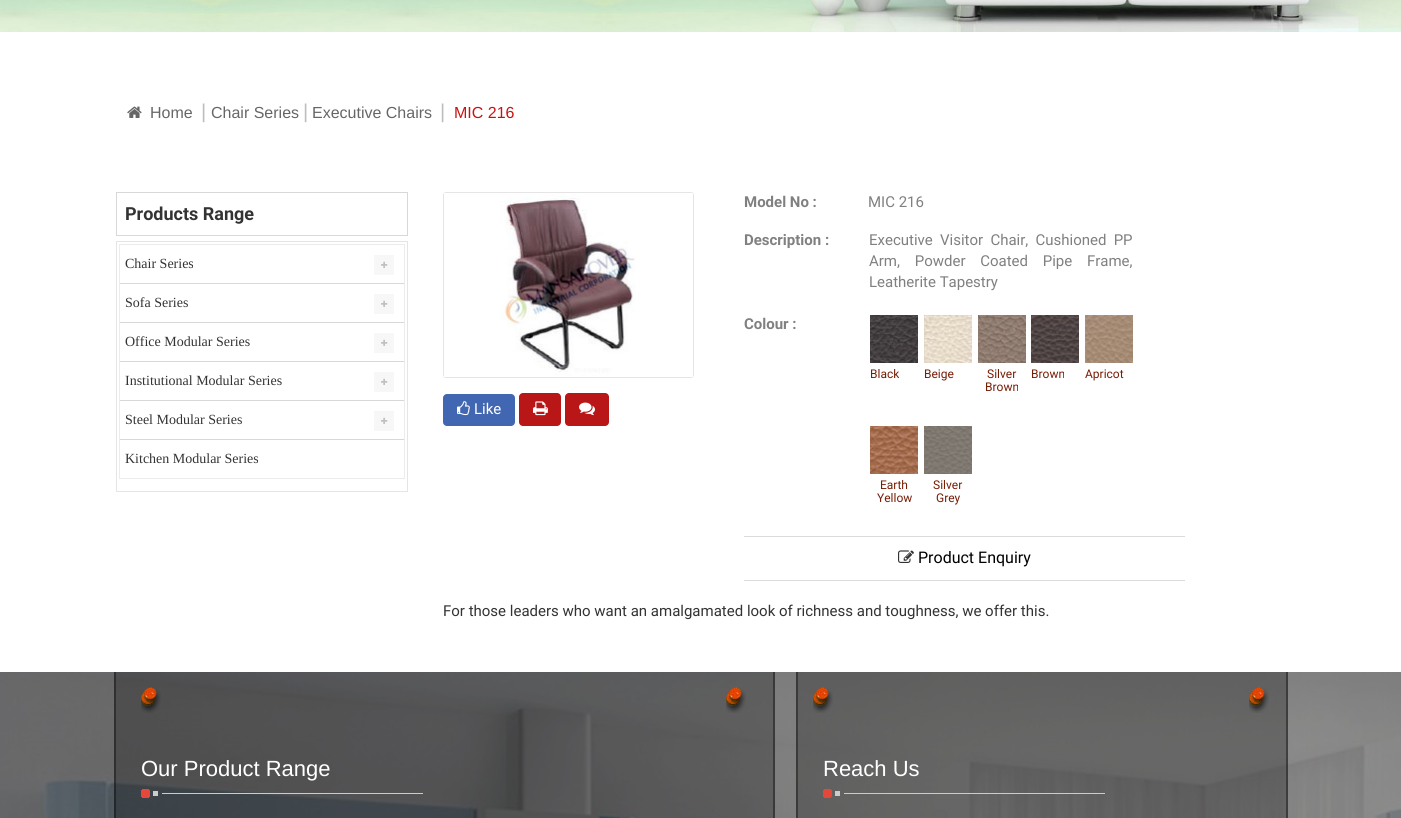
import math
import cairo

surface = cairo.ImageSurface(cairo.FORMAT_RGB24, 1401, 818)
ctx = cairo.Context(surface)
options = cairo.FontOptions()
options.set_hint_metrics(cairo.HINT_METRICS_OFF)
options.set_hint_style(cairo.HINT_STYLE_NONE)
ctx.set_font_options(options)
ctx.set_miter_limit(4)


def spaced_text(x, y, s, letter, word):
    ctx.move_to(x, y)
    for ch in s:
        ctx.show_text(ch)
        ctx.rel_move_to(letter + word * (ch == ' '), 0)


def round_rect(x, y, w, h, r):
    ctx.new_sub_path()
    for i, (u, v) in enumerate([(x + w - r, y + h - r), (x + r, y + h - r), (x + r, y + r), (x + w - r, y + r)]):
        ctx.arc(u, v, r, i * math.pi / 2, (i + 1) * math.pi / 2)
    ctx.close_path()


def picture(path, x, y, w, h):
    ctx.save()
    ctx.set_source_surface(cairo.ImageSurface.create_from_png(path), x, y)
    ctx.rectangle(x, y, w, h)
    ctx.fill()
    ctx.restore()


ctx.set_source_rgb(1, 1, 1)
ctx.paint()
picture("img1.png", 0, 0, 1401, 32)
picture("img2.png", 127, 106, 15, 12)
ctx.select_font_face("Liberation Sans")
ctx.set_font_size(16)
ctx.set_source_rgb(0.4, 0.4, 0.4)
ctx.move_to(150, 118)
ctx.show_text("Home")
ctx.set_font_size(20)
ctx.set_source_rgb(0.741, 0.741, 0.741)
ctx.move_to(201, 118)
ctx.show_text("|")
ctx.set_font_size(16)
ctx.set_source_rgb(0.4, 0.4, 0.4)
ctx.move_to(211, 118)
ctx.show_text("Chair Series")
ctx.set_font_size(20)
ctx.set_source_rgb(0.741, 0.741, 0.741)
ctx.move_to(303, 118)
ctx.show_text("|")
ctx.set_font_size(16)
ctx.set_source_rgb(0.4, 0.4, 0.4)
ctx.move_to(312, 118)
ctx.show_text("Executive Chairs")
ctx.set_font_size(20)
ctx.set_source_rgb(0.741, 0.741, 0.741)
ctx.move_to(440, 118)
ctx.show_text("|")
ctx.set_font_size(16)
ctx.set_source_rgb(0.792, 0.067, 0.067)
ctx.move_to(454, 118)
ctx.show_text("MIC 216")
ctx.rectangle(116.5, 192.5, 291, 43)
ctx.set_source_rgb(0.847, 0.847, 0.847)
ctx.set_line_width(1)
ctx.stroke()
ctx.select_font_face("Roboto", cairo.FONT_SLANT_NORMAL, cairo.FONT_WEIGHT_BOLD)
ctx.set_font_size(18)
ctx.set_source_rgb(0.2, 0.2, 0.2)
ctx.move_to(125, 220)
ctx.show_text("Products Range")
ctx.rectangle(116.5, 241.5, 291, 250)
ctx.set_source_rgb(0.898, 0.898, 0.898)
ctx.stroke()
ctx.rectangle(119.5, 244.5, 285, 234)
ctx.set_source_rgb(0.925, 0.925, 0.925)
ctx.stroke()
ctx.set_source_rgb(0.847, 0.847, 0.847)
ctx.rectangle(120, 283, 284, 1)
ctx.fill()
ctx.select_font_face("Liberation Serif")
ctx.set_font_size(14)
ctx.set_source_rgb(0.2, 0.2, 0.2)
ctx.move_to(125, 268)
ctx.show_text("Chair Series")
ctx.set_source_rgb(0.965, 0.965, 0.965)
ctx.rectangle(374, 255, 20, 20)
ctx.fill()
picture("img3.png", 381, 261, 7, 7)
ctx.set_source_rgb(0.847, 0.847, 0.847)
ctx.rectangle(120, 322, 284, 1)
ctx.fill()
ctx.set_source_rgb(0.2, 0.2, 0.2)
ctx.move_to(125, 307)
ctx.show_text("Sofa Series")
ctx.set_source_rgb(0.965, 0.965, 0.965)
ctx.rectangle(374, 294, 20, 20)
ctx.fill()
picture("img3.png", 381, 300, 7, 7)
ctx.set_source_rgb(0.847, 0.847, 0.847)
ctx.rectangle(120, 361, 284, 1)
ctx.fill()
ctx.set_source_rgb(0.2, 0.2, 0.2)
ctx.move_to(125, 346)
ctx.show_text("Office Modular Series")
ctx.set_source_rgb(0.965, 0.965, 0.965)
ctx.rectangle(374, 333, 20, 20)
ctx.fill()
picture("img3.png", 381, 339, 7, 7)
ctx.set_source_rgb(0.847, 0.847, 0.847)
ctx.rectangle(120, 400, 284, 1)
ctx.fill()
ctx.set_source_rgb(0.2, 0.2, 0.2)
ctx.move_to(125, 385)
ctx.show_text("Institutional Modular Series")
ctx.set_source_rgb(0.965, 0.965, 0.965)
ctx.rectangle(374, 372, 20, 20)
ctx.fill()
picture("img3.png", 381, 378, 7, 7)
ctx.set_source_rgb(0.847, 0.847, 0.847)
ctx.rectangle(120, 439, 284, 1)
ctx.fill()
ctx.set_source_rgb(0.2, 0.2, 0.2)
ctx.move_to(125, 424)
ctx.show_text("Steel Modular Series")
ctx.set_source_rgb(0.965, 0.965, 0.965)
ctx.rectangle(374, 411, 20, 20)
ctx.fill()
picture("img3.png", 381, 417, 7, 7)
ctx.set_source_rgb(0.2, 0.2, 0.2)
ctx.move_to(125, 463)
ctx.show_text("Kitchen Modular Series")
round_rect(443.5, 192.5, 250, 185, 2.5)
ctx.set_source_rgb(0.898, 0.898, 0.898)
ctx.stroke()
picture("img4.png", 444, 193, 249, 184)
ctx.set_source_rgb(0.259, 0.404, 0.698)
round_rect(443, 394, 72, 32, 4)
ctx.fill()
picture("img5.png", 457, 401, 13, 15)
ctx.select_font_face("Roboto")
ctx.set_font_size(15)
ctx.set_source_rgb(1, 1, 1)
ctx.move_to(474, 414)
ctx.show_text("Like")
ctx.set_source_rgb(0.725, 0.09, 0.09)
round_rect(519, 393, 42, 33, 4)
ctx.fill()
picture("img6.png", 533, 401, 15, 15)
round_rect(565, 393, 44, 33, 4)
ctx.fill()
picture("img7.png", 579, 402, 16, 14)
ctx.select_font_face("Roboto", cairo.FONT_SLANT_NORMAL, cairo.FONT_WEIGHT_BOLD)
ctx.set_source_rgb(0.502, 0.502, 0.502)
ctx.move_to(744, 207)
ctx.show_text("Model No :")
ctx.select_font_face("Roboto")
ctx.move_to(868, 207)
ctx.show_text("MIC 216")
ctx.select_font_face("Roboto", cairo.FONT_SLANT_NORMAL, cairo.FONT_WEIGHT_BOLD)
ctx.move_to(744, 245)
ctx.show_text("Description :")
ctx.select_font_face("Roboto")
spaced_text(869, 245, "Executive Visitor Chair, Cushioned PP", 0, 3.5)
spaced_text(869, 266, "Arm, Powder Coated Pipe Frame,", 0, 11)
ctx.move_to(869, 287)
ctx.show_text("Leatherite Tapestry")
ctx.select_font_face("Roboto", cairo.FONT_SLANT_NORMAL, cairo.FONT_WEIGHT_BOLD)
ctx.move_to(744, 329)
ctx.show_text("Colour :")
picture("img8.png", 870, 315, 48, 48)
ctx.select_font_face("Roboto")
ctx.set_font_size(12)
ctx.set_source_rgb(0.467, 0.11, 0.02)
ctx.move_to(870, 378)
ctx.show_text("Black")
picture("img9.png", 924, 315, 48, 48)
ctx.move_to(924, 378)
ctx.show_text("Beige")
picture("img10.png", 978, 315, 48, 48)
ctx.move_to(987, 378)
ctx.show_text("Silver")
ctx.move_to(985, 391)
ctx.show_text("Brown")
picture("img11.png", 1031, 315, 48, 48)
ctx.move_to(1031, 378)
ctx.show_text("Brown")
picture("img12.png", 1085, 315, 48, 48)
ctx.move_to(1085, 378)
ctx.show_text("Apricot")
picture("img13.png", 870, 426, 48, 48)
ctx.move_to(880, 489)
ctx.show_text("Earth")
ctx.move_to(877, 502)
ctx.show_text("Yellow")
picture("img14.png", 924, 426, 48, 48)
ctx.move_to(933, 489)
ctx.show_text("Silver")
ctx.move_to(936, 502)
ctx.show_text("Grey")
ctx.set_source_rgb(0.859, 0.859, 0.859)
ctx.rectangle(744, 536, 441, 1)
ctx.fill()
ctx.rectangle(744, 580, 441, 1)
ctx.fill()
picture("img15.png", 898, 550, 16, 13)
ctx.set_font_size(16)
ctx.set_source_rgb(0, 0, 0)
ctx.move_to(918, 563)
ctx.show_text("Product Enquiry")
ctx.set_font_size(15)
ctx.set_source_rgb(0.2, 0.2, 0.2)
ctx.move_to(443, 616)
ctx.show_text("For those leaders who want an amalgamated look of richness and toughness, we offer this.")
picture("img16.png", 0, 672, 1401, 146)
ctx.set_source_rgba(0, 0, 0, 0.54)
ctx.new_path()
ctx.move_to(114, 672)
ctx.line_to(114, 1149)
ctx.line_to(775, 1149)
ctx.line_to(775, 672)
ctx.line_to(773, 672)
ctx.line_to(773, 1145)
ctx.line_to(116, 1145)
ctx.line_to(116, 672)
ctx.close_path()
ctx.fill()
ctx.set_source_rgba(0, 0, 0, 0.25)
ctx.rectangle(116, 672, 657, 146)
ctx.fill()
picture("img17.png", 141, 687, 20, 26)
picture("img18.png", 726, 687, 20, 26)
ctx.select_font_face("Liberation Sans")
ctx.set_font_size(22)
ctx.set_source_rgb(1, 1, 1)
ctx.move_to(141, 776)
ctx.show_text("Our Product Range")
picture("img19.png", 141, 789, 282, 9)
ctx.set_source_rgba(0, 0, 0, 0.54)
ctx.new_path()
ctx.move_to(796, 672)
ctx.line_to(796, 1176)
ctx.line_to(1288, 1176)
ctx.line_to(1288, 672)
ctx.line_to(1286, 672)
ctx.line_to(1286, 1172)
ctx.line_to(798, 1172)
ctx.line_to(798, 672)
ctx.close_path()
ctx.fill()
ctx.set_source_rgba(0, 0, 0, 0.25)
ctx.rectangle(798, 672, 488, 146)
ctx.fill()
picture("img20.png", 813, 687, 20, 26)
picture("img21.png", 1249, 687, 20, 26)
ctx.set_source_rgb(1, 1, 1)
ctx.move_to(823, 776)
ctx.show_text("Reach Us")
picture("img22.png", 823, 789, 282, 9)
surface.write_to_png("page.png")
